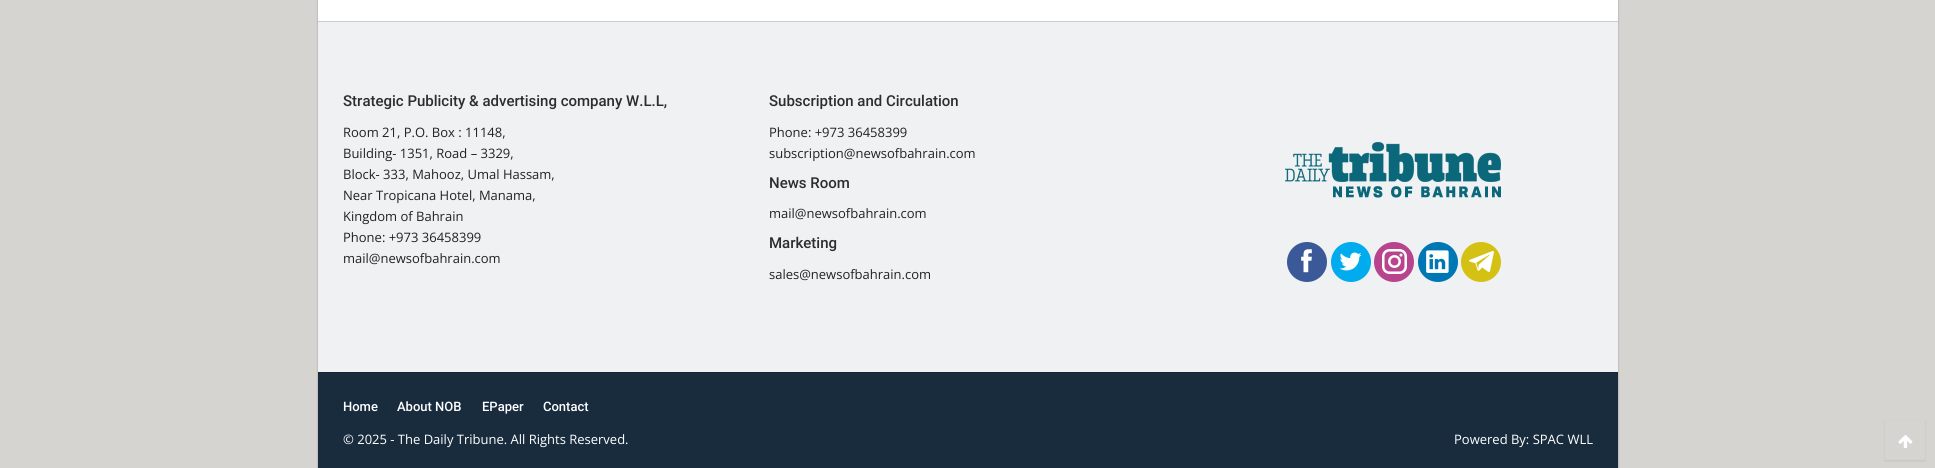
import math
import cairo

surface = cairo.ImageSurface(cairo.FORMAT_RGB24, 1935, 468)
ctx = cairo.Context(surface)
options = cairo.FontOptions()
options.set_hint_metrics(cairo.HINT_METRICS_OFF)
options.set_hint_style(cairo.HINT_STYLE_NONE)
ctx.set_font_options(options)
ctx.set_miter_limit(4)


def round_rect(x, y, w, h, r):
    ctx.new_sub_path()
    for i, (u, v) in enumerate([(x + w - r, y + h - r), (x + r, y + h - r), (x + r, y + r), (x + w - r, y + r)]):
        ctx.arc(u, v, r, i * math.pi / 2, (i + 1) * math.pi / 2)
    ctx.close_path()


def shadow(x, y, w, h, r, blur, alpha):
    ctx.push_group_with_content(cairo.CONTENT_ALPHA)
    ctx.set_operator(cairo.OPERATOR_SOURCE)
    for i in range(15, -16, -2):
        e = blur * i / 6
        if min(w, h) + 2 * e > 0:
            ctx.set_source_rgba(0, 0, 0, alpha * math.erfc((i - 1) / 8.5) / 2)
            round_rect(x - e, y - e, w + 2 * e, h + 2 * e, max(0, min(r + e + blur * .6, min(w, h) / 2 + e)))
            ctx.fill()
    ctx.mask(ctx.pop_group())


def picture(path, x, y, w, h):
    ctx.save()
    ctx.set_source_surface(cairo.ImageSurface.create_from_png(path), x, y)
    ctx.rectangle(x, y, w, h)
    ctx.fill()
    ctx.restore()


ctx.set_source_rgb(0.835, 0.831, 0.816)
ctx.paint()
ctx.set_source_rgb(0, 0, 0)
shadow(318, -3, 1300, 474, 0, 1, 0.27)
ctx.set_source_rgb(1, 1, 1)
ctx.rectangle(318, 0, 1300, 21)
ctx.fill()
ctx.set_source_rgb(0.937, 0.945, 0.949)
ctx.rectangle(318, 22, 1300, 350)
ctx.fill()
ctx.set_source_rgb(0.796, 0.804, 0.808)
ctx.rectangle(318, 21, 1300, 1)
ctx.fill()
ctx.select_font_face("Roboto Medium")
ctx.set_font_size(15)
ctx.set_source_rgb(0.176, 0.176, 0.176)
ctx.move_to(343, 106)
ctx.show_text("Strategic Publicity & advertising company W.L.L,")
ctx.select_font_face("Open Sans")
ctx.set_font_size(13)
ctx.set_source_rgb(0.133, 0.133, 0.133)
ctx.move_to(343, 137)
ctx.show_text("Room 21, P.O. Box : 11148,")
ctx.move_to(343, 158)
ctx.show_text("Building- 1351, Road – 3329,")
ctx.move_to(343, 179)
ctx.show_text("Block- 333, Mahooz, Umal Hassam,")
ctx.move_to(343, 200)
ctx.show_text("Near Tropicana Hotel, Manama,")
ctx.move_to(343, 221)
ctx.show_text("Kingdom of Bahrain")
ctx.move_to(343, 242)
ctx.show_text("Phone: +973 36458399")
ctx.move_to(343, 263)
ctx.show_text("mail@newsofbahrain.com")
ctx.select_font_face("Roboto Medium")
ctx.set_font_size(15)
ctx.set_source_rgb(0.176, 0.176, 0.176)
ctx.move_to(769, 106)
ctx.show_text("Subscription and Circulation")
ctx.select_font_face("Open Sans")
ctx.set_font_size(13)
ctx.set_source_rgb(0.133, 0.133, 0.133)
ctx.move_to(769, 137)
ctx.show_text("Phone: +973 36458399")
ctx.move_to(769, 158)
ctx.show_text("subscription@newsofbahrain.com")
ctx.select_font_face("Roboto Medium")
ctx.set_font_size(15)
ctx.set_source_rgb(0.176, 0.176, 0.176)
ctx.move_to(769, 188)
ctx.show_text("News Room")
ctx.select_font_face("Open Sans")
ctx.set_font_size(13)
ctx.set_source_rgb(0.133, 0.133, 0.133)
ctx.move_to(769, 218)
ctx.show_text("mail@newsofbahrain.com")
ctx.select_font_face("Roboto Medium")
ctx.set_font_size(15)
ctx.set_source_rgb(0.176, 0.176, 0.176)
ctx.move_to(769, 248)
ctx.show_text("Marketing")
ctx.select_font_face("Open Sans")
ctx.set_font_size(13)
ctx.set_source_rgb(0.133, 0.133, 0.133)
ctx.move_to(769, 279)
ctx.show_text("sales@newsofbahrain.com")
picture("img1.png", 1285, 142, 216, 56)
ctx.set_source_rgb(0.231, 0.349, 0.596)
ctx.arc(1307, 262, 20, 0, 2 * math.pi)
ctx.fill()
picture("img2.png", 1301, 249, 11, 24)
ctx.set_source_rgb(0, 0.675, 0.929)
ctx.arc(1351, 262, 20, 0, 2 * math.pi)
ctx.fill()
picture("img3.png", 1339, 252, 23, 19)
ctx.set_source_rgb(0.725, 0.267, 0.557)
ctx.arc(1394, 262, 20, 0, 2 * math.pi)
ctx.fill()
picture("img4.png", 1382, 249, 25, 25)
ctx.set_source_rgb(0, 0.467, 0.71)
ctx.arc(1438, 262, 20, 0, 2 * math.pi)
ctx.fill()
picture("img5.png", 1426, 250, 23, 23)
ctx.set_source_rgb(0.835, 0.757, 0.082)
ctx.arc(1481, 262, 20, 0, 2 * math.pi)
ctx.fill()
picture("img6.png", 1469, 251, 25, 21)
ctx.set_source_rgb(0.094, 0.173, 0.243)
ctx.rectangle(318, 373, 1300, 95)
ctx.fill()
ctx.set_source_rgb(0.078, 0.145, 0.208)
ctx.rectangle(318, 372, 1300, 1)
ctx.fill()
ctx.select_font_face("Roboto Medium")
ctx.set_source_rgb(1, 1, 1)
ctx.move_to(343, 411)
ctx.show_text("Home")
ctx.move_to(397, 411)
ctx.show_text("About NOB")
ctx.move_to(482, 411)
ctx.show_text("EPaper")
ctx.move_to(543, 411)
ctx.show_text("Contact")
ctx.select_font_face("Open Sans")
ctx.move_to(343, 444)
ctx.show_text("© 2025 - The Daily Tribune. All Rights Reserved.")
ctx.move_to(1454, 444)
ctx.show_text("Powered By: SPAC WLL")
ctx.save()
ctx.set_fill_rule(cairo.FILL_RULE_EVEN_ODD)
ctx.new_path()
ctx.move_to(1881, 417)
ctx.line_to(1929, 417)
ctx.line_to(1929, 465)
ctx.line_to(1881, 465)
ctx.close_path()
ctx.move_to(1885, 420)
ctx.line_to(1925, 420)
ctx.line_to(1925, 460)
ctx.line_to(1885, 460)
ctx.close_path()
ctx.clip()
ctx.set_source_rgb(0, 0, 0)
shadow(1885, 421, 40, 40, 0, 1, 0.09)
ctx.restore()
picture("img7.png", 1898, 435, 15, 14)
surface.write_to_png("page.png")
